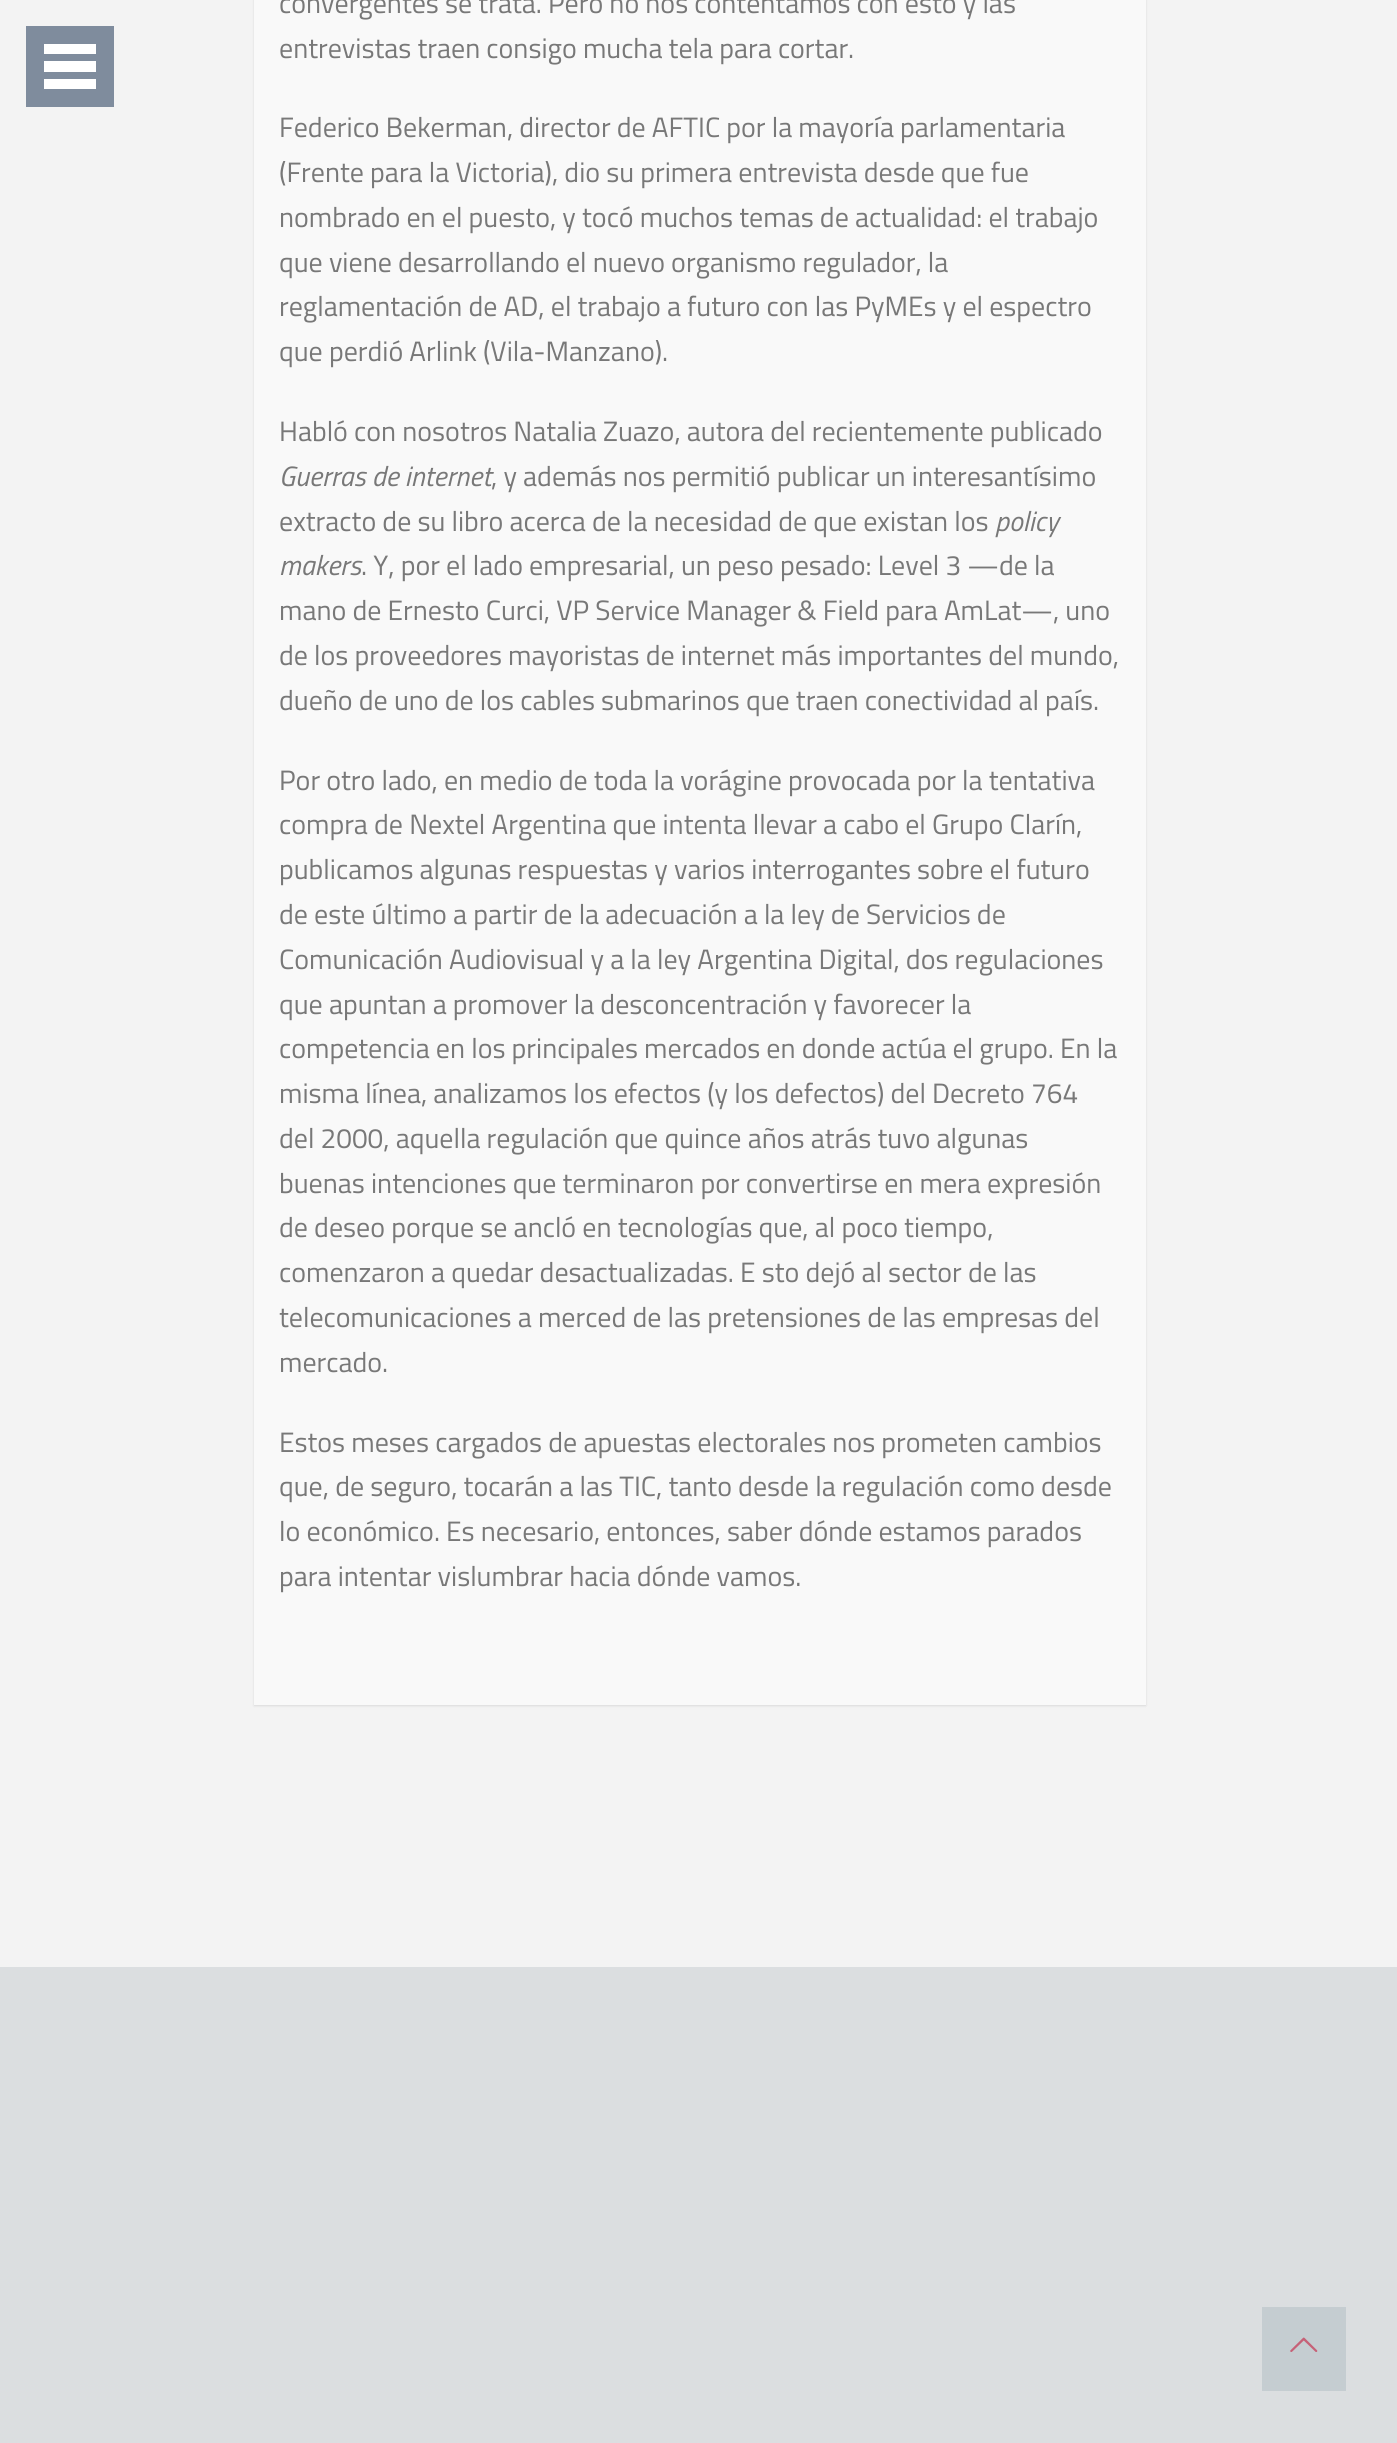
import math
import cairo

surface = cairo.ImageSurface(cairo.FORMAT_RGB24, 1397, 2443)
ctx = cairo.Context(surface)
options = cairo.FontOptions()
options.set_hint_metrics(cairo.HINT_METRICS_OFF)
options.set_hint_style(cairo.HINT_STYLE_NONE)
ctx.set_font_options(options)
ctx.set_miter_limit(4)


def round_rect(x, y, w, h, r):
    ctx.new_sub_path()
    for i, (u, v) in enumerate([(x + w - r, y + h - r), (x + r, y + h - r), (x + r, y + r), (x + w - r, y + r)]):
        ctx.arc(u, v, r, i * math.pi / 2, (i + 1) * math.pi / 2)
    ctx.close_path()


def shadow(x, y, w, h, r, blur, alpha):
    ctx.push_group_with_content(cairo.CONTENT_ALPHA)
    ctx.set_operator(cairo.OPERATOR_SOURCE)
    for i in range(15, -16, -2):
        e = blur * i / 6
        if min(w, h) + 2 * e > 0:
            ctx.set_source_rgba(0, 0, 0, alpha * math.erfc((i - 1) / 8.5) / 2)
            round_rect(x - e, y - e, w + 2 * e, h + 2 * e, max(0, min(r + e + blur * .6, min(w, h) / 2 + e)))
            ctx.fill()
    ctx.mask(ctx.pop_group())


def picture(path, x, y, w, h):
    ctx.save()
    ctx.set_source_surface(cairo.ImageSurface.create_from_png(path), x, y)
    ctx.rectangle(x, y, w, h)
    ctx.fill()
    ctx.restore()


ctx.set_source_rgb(0.953, 0.953, 0.953)
ctx.paint()
ctx.set_source_rgb(0.498, 0.549, 0.616)
ctx.rectangle(26, 26, 88, 81)
ctx.fill()
ctx.set_source_rgb(1, 1, 1)
ctx.rectangle(44, 44, 52, 10)
ctx.fill()
ctx.rectangle(44, 61, 52, 11)
ctx.fill()
ctx.rectangle(44, 79, 52, 10)
ctx.fill()
ctx.set_source_rgb(0, 0, 0)
shadow(254, -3, 892, 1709, 0, 1, 0.1)
ctx.set_source_rgb(0.976, 0.976, 0.976)
ctx.rectangle(254, 0, 892, 1705)
ctx.fill()
ctx.select_font_face("Titillium Web")
ctx.set_font_size(28)
ctx.set_source_rgb(0.471, 0.471, 0.471)
ctx.move_to(279, 13)
ctx.show_text("convergentes se trata. Pero no nos contentamos con esto y las")
ctx.move_to(279, 58)
ctx.show_text("entrevistas traen consigo mucha tela para cortar.")
ctx.move_to(279, 137)
ctx.show_text("Federico Bekerman, director de AFTIC por la mayoría parlamentaria")
ctx.move_to(279, 182)
ctx.show_text("(Frente para la Victoria), dio su primera entrevista desde que fue")
ctx.move_to(279, 227)
ctx.show_text("nombrado en el puesto, y tocó muchos temas de actualidad: el trabajo")
ctx.move_to(279, 272)
ctx.show_text("que viene desarrollando el nuevo organismo regulador, la")
ctx.move_to(279, 316)
ctx.show_text("reglamentación de AD, el trabajo a futuro con las PyMEs y el espectro")
ctx.move_to(279, 361)
ctx.show_text("que perdió Arlink (Vila-Manzano).")
ctx.move_to(279, 441)
ctx.show_text("Habló con nosotros Natalia Zuazo, autora del recientemente publicado")
ctx.select_font_face("Titillium Web", cairo.FONT_SLANT_ITALIC)
ctx.move_to(279, 486)
ctx.show_text("Guerras de internet")
ctx.select_font_face("Titillium Web")
ctx.move_to(491, 486)
ctx.show_text(", y además nos permitió publicar un interesantísimo")
ctx.move_to(279, 531)
ctx.show_text("extracto de su libro acerca de la necesidad de que existan los")
ctx.select_font_face("Titillium Web", cairo.FONT_SLANT_ITALIC)
ctx.move_to(995, 531)
ctx.show_text("policy")
ctx.move_to(279, 575)
ctx.show_text("makers")
ctx.select_font_face("Titillium Web")
ctx.move_to(361, 575)
ctx.show_text(". Y, por el lado empresarial, un peso pesado: Level 3 —de la")
ctx.move_to(279, 620)
ctx.show_text("mano de Ernesto Curci, VP Service Manager & Field para AmLat—, uno")
ctx.move_to(279, 665)
ctx.show_text("de los proveedores mayoristas de internet más importantes del mundo,")
ctx.move_to(279, 710)
ctx.show_text("dueño de uno de los cables submarinos que traen conectividad al país.")
ctx.move_to(279, 790)
ctx.show_text("Por otro lado, en medio de toda la vorágine provocada por la tentativa")
ctx.move_to(279, 834)
ctx.show_text("compra de Nextel Argentina que intenta llevar a cabo el Grupo Clarín,")
ctx.move_to(279, 879)
ctx.show_text("publicamos algunas respuestas y varios interrogantes sobre el futuro")
ctx.move_to(279, 924)
ctx.show_text("de este último a partir de la adecuación a la ley de Servicios de")
ctx.move_to(279, 969)
ctx.show_text("Comunicación Audiovisual y a la ley Argentina Digital, dos regulaciones")
ctx.move_to(279, 1014)
ctx.show_text("que apuntan a promover la desconcentración y favorecer la")
ctx.move_to(279, 1058)
ctx.show_text("competencia en los principales mercados en donde actúa el grupo. En la")
ctx.move_to(279, 1103)
ctx.show_text("misma línea, analizamos los efectos (y los defectos) del Decreto 764")
ctx.move_to(279, 1148)
ctx.show_text("del 2000, aquella regulación que quince años atrás tuvo algunas")
ctx.move_to(279, 1193)
ctx.show_text("buenas intenciones que terminaron por convertirse en mera expresión")
ctx.move_to(279, 1237)
ctx.show_text("de deseo porque se ancló en tecnologías que, al poco tiempo,")
ctx.move_to(279, 1282)
ctx.show_text("comenzaron a quedar desactualizadas. E sto dejó al sector de las")
ctx.move_to(279, 1327)
ctx.show_text("telecomunicaciones a merced de las pretensiones de las empresas del")
ctx.move_to(279, 1372)
ctx.show_text("mercado.")
ctx.move_to(279, 1452)
ctx.show_text("Estos meses cargados de apuestas electorales nos prometen cambios")
ctx.move_to(279, 1496)
ctx.show_text("que, de seguro, tocarán a las TIC, tanto desde la regulación como desde")
ctx.move_to(279, 1541)
ctx.show_text("lo económico. Es necesario, entonces, saber dónde estamos parados")
ctx.move_to(279, 1586)
ctx.show_text("para intentar vislumbrar hacia dónde vamos.")
ctx.set_source_rgb(0.859, 0.871, 0.878)
ctx.rectangle(0, 1967, 1397, 476)
ctx.fill()
ctx.set_source_rgb(0.773, 0.804, 0.82)
ctx.rectangle(1262, 2307, 84, 84)
ctx.fill()
picture("img1.png", 1290, 2337, 28, 15)
surface.write_to_png("page.png")
